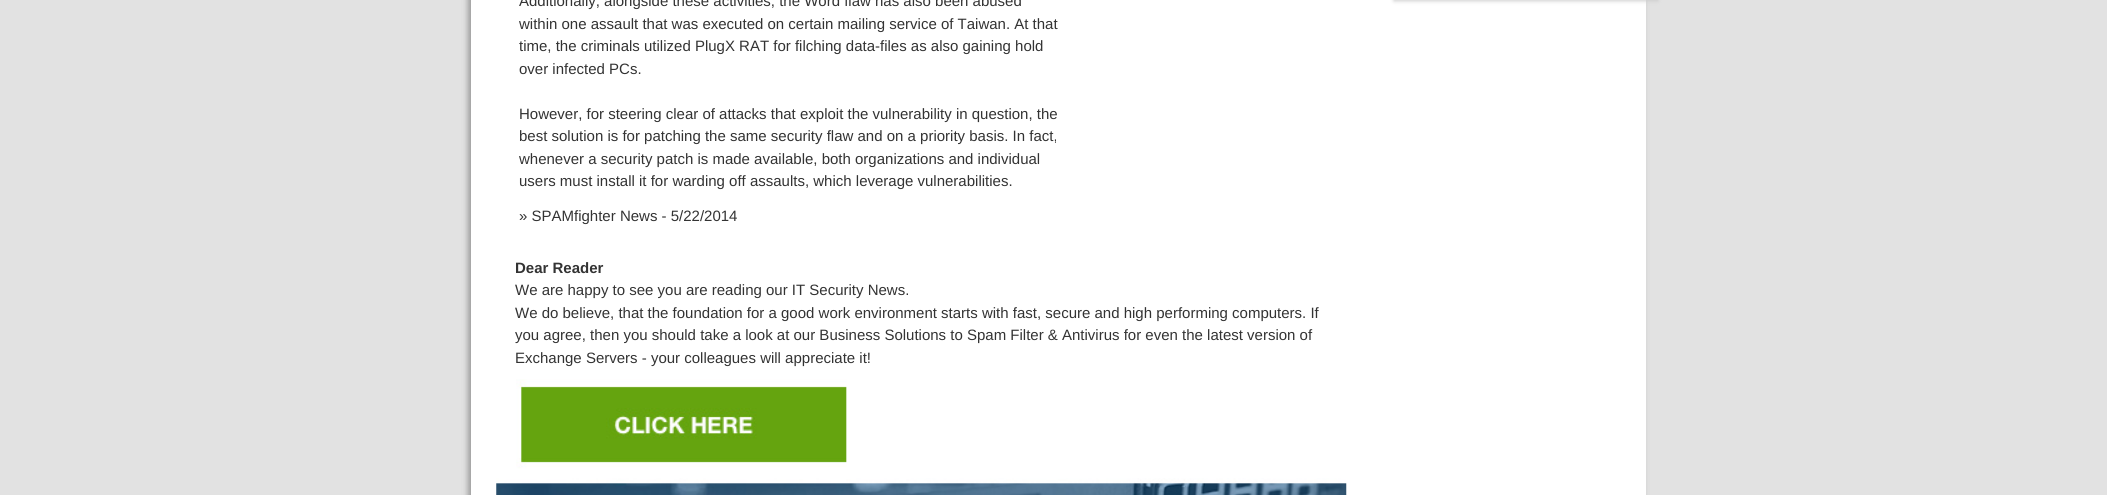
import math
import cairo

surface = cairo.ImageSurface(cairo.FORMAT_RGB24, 2107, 495)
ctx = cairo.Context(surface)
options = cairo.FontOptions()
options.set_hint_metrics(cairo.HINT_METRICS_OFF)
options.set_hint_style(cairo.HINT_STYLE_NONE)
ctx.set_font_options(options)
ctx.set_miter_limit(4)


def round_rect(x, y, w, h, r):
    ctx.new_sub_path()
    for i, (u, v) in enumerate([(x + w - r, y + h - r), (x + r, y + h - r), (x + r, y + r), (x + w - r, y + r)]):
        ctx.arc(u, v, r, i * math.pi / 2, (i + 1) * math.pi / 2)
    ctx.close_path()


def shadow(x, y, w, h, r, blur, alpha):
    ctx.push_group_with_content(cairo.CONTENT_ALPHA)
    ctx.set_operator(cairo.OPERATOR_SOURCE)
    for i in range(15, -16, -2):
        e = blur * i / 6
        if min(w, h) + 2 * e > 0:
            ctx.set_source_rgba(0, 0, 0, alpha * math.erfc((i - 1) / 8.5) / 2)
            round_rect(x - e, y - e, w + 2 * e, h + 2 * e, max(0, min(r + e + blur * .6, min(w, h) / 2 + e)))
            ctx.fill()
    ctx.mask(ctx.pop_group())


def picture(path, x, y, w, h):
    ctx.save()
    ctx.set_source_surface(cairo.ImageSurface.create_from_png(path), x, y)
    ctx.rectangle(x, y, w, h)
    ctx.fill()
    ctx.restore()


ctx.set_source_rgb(0.886, 0.886, 0.886)
ctx.paint()
ctx.set_source_rgb(0.6, 0.6, 0.6)
shadow(468, -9, 1175, 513, 0, 3, 1)
ctx.set_source_rgb(1, 1, 1)
ctx.rectangle(471, 0, 1175, 495)
ctx.fill()
ctx.select_font_face("Liberation Sans")
ctx.set_font_size(15)
ctx.set_source_rgb(0.2, 0.2, 0.2)
ctx.move_to(519, 6)
ctx.show_text("Additionally, alongside these activities, the Word flaw has also been abused")
ctx.move_to(519, 29)
ctx.show_text("within one assault that was executed on certain mailing service of Taiwan. At that")
ctx.move_to(519, 51)
ctx.show_text("time, the criminals utilized PlugX RAT for filching data-files as also gaining hold")
ctx.move_to(519, 74)
ctx.show_text("over infected PCs.")
ctx.move_to(519, 119)
ctx.show_text("However, for steering clear of attacks that exploit the vulnerability in question, the")
ctx.move_to(519, 141)
ctx.show_text("best solution is for patching the same security flaw and on a priority basis. In fact,")
ctx.move_to(519, 164)
ctx.show_text("whenever a security patch is made available, both organizations and individual")
ctx.move_to(519, 186)
ctx.show_text("users must install it for warding off assaults, which leverage vulnerabilities.")
ctx.move_to(519, 221)
ctx.show_text("» SPAMfighter News - 5/22/2014")
ctx.select_font_face("Liberation Sans", cairo.FONT_SLANT_NORMAL, cairo.FONT_WEIGHT_BOLD)
ctx.move_to(515, 273)
ctx.show_text("Dear Reader")
ctx.select_font_face("Liberation Sans")
ctx.move_to(515, 295)
ctx.show_text("We are happy to see you are reading our IT Security News.")
ctx.move_to(515, 318)
ctx.show_text("We do believe, that the foundation for a good work environment starts with fast, secure and high performing computers. If")
ctx.move_to(515, 340)
ctx.show_text("you agree, then you should take a look at our Business Solutions to Spam Filter & Antivirus for even the latest version of")
ctx.move_to(515, 363)
ctx.show_text("Exchange Servers - your colleagues will appreciate it!")
picture("img1.png", 496, 379, 851, 116)
ctx.set_source_rgb(0.8, 0.8, 0.8)
shadow(1394, -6, 264, 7, 0, 2, 1)
surface.write_to_png("page.png")
